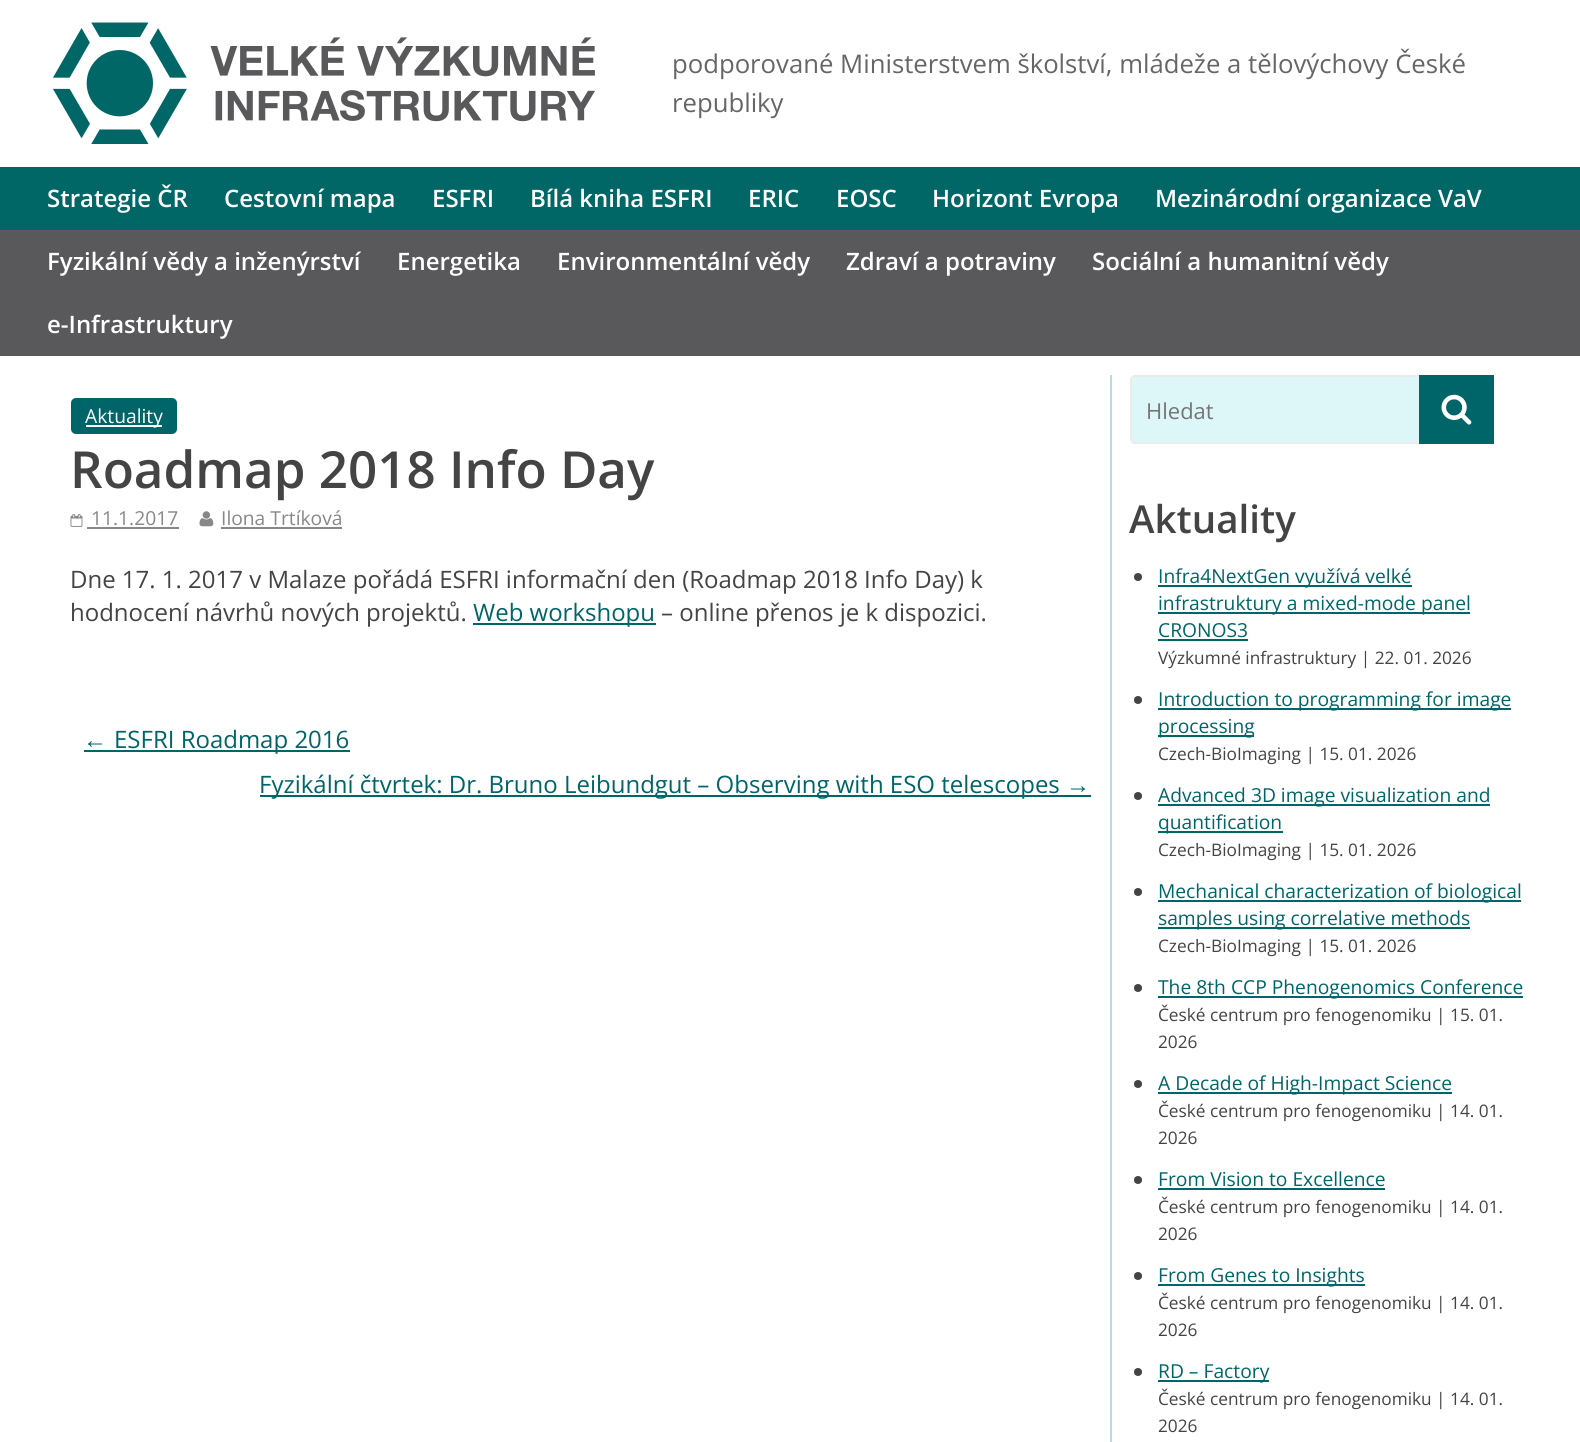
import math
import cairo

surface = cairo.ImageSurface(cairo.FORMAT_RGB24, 1580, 1442)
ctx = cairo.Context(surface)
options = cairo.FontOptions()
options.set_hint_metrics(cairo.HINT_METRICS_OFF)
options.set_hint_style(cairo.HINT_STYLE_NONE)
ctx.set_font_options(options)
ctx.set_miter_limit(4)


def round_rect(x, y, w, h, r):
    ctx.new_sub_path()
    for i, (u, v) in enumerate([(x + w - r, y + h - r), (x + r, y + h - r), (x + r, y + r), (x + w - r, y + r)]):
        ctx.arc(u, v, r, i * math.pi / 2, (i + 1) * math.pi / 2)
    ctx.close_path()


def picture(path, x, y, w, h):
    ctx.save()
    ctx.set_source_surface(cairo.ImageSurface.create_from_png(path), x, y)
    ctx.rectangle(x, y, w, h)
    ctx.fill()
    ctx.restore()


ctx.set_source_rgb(1, 1, 1)
ctx.paint()
picture("img1.png", 53, 22, 542, 122)
ctx.select_font_face("Open Sans")
ctx.set_font_size(25.7)
ctx.set_source_rgb(0.4, 0.4, 0.4)
ctx.move_to(672, 73)
ctx.show_text("podporované Ministerstvem školství, mládeže a tělovýchovy České")
ctx.move_to(672, 112)
ctx.show_text("republiky")
ctx.set_source_rgb(0, 0.4, 0.4)
ctx.rectangle(0, 167, 1580, 63)
ctx.fill()
ctx.select_font_face("Open Sans SemiBold")
ctx.set_font_size(24)
ctx.set_source_rgb(1, 1, 1)
ctx.move_to(47, 207)
ctx.show_text("Strategie ČR")
ctx.move_to(224, 207)
ctx.show_text("Cestovní mapa")
ctx.move_to(432, 207)
ctx.show_text("ESFRI")
ctx.move_to(530, 207)
ctx.show_text("Bílá kniha ESFRI")
ctx.move_to(748, 207)
ctx.show_text("ERIC")
ctx.move_to(836, 207)
ctx.show_text("EOSC")
ctx.move_to(932, 207)
ctx.show_text("Horizont Evropa")
ctx.move_to(1155, 207)
ctx.show_text("Mezinárodní organizace VaV")
ctx.set_source_rgb(0.349, 0.349, 0.361)
ctx.rectangle(0, 230, 1580, 126)
ctx.fill()
ctx.set_source_rgb(1, 1, 1)
ctx.move_to(47, 270)
ctx.show_text("Fyzikální vědy a inženýrství")
ctx.move_to(397, 270)
ctx.show_text("Energetika")
ctx.move_to(557, 270)
ctx.show_text("Environmentální vědy")
ctx.move_to(846, 270)
ctx.show_text("Zdraví a potraviny")
ctx.move_to(1092, 270)
ctx.show_text("Sociální a humanitní vědy")
ctx.move_to(47, 333)
ctx.show_text("e-Infrastruktury")
ctx.set_source_rgb(0, 0.396, 0.408)
round_rect(71, 398, 106, 36, 5)
ctx.fill()
ctx.set_source_rgb(1, 1, 1)
ctx.rectangle(86, 425, 76, 2)
ctx.fill()
ctx.select_font_face("Open Sans")
ctx.set_font_size(19.25)
ctx.move_to(85, 423)
ctx.show_text("Aktuality")
ctx.select_font_face("Open Sans SemiBold")
ctx.set_font_size(51.1)
ctx.set_source_rgb(0.267, 0.267, 0.267)
ctx.move_to(70, 488)
ctx.show_text("Roadmap 2018 Info Day")
picture("img2.png", 70, 514, 13, 13)
ctx.select_font_face("Open Sans")
ctx.set_font_size(19.25)
ctx.set_source_rgb(0.533, 0.533, 0.533)
ctx.move_to(91, 525)
ctx.show_text("11.1.2017")
ctx.rectangle(87, 527, 92, 2)
ctx.fill()
picture("img3.png", 199, 511, 15, 16)
ctx.move_to(221, 525)
ctx.show_text("Ilona Trtíková")
ctx.rectangle(221, 527, 121, 2)
ctx.fill()
ctx.set_font_size(24)
ctx.set_source_rgb(0.267, 0.267, 0.267)
ctx.move_to(70, 588)
ctx.show_text("Dne 17. 1. 2017 v Malaze pořádá ESFRI informační den (Roadmap 2018 Info Day) k")
ctx.move_to(70, 621)
ctx.show_text("hodnocení návrhů nových projektů.")
ctx.set_source_rgb(0, 0.396, 0.408)
ctx.rectangle(473, 623, 183, 2)
ctx.fill()
ctx.move_to(473, 621)
ctx.show_text("Web workshopu")
ctx.set_source_rgb(0.267, 0.267, 0.267)
ctx.move_to(661, 621)
ctx.show_text("– online přenos je k dispozici.")
ctx.select_font_face("Liberation Sans")
ctx.set_source_rgb(0, 0.396, 0.408)
ctx.move_to(83, 748)
ctx.show_text("←")
ctx.rectangle(84, 750, 266, 2)
ctx.fill()
ctx.select_font_face("Open Sans")
ctx.move_to(114, 748)
ctx.show_text("ESFRI Roadmap 2016")
ctx.rectangle(260, 795, 831, 2)
ctx.fill()
ctx.move_to(259, 793)
ctx.show_text("Fyzikální čtvrtek: Dr. Bruno Leibundgut – Observing with ESO telescopes")
ctx.select_font_face("Liberation Sans")
ctx.move_to(1066, 793)
ctx.show_text("→")
ctx.set_source_rgb(0.725, 0.859, 0.875)
ctx.rectangle(1110, 375, 2, 1067)
ctx.fill()
ctx.set_source_rgb(0.867, 0.961, 0.965)
round_rect(1131, 376, 340, 67, 4)
ctx.fill_preserve()
ctx.set_source_rgb(0.918, 0.918, 0.918)
ctx.stroke()
ctx.select_font_face("Open Sans")
ctx.set_font_size(22)
ctx.set_source_rgb(0.459, 0.459, 0.459)
ctx.move_to(1146, 419)
ctx.show_text("Hledat")
ctx.set_source_rgb(0, 0.396, 0.408)
ctx.rectangle(1419, 375, 75, 69)
ctx.fill()
picture("img4.png", 1441, 394, 31, 31)
ctx.select_font_face("Open Sans SemiBold")
ctx.set_font_size(38.5)
ctx.set_source_rgb(0.267, 0.267, 0.267)
ctx.move_to(1129, 533)
ctx.show_text("Aktuality")
ctx.new_path()
ctx.arc(1138, 577, 4, 0, 2 * math.pi)
ctx.fill()
ctx.set_source_rgb(0, 0.396, 0.408)
ctx.rectangle(1158, 585, 254, 2)
ctx.fill()
ctx.select_font_face("Open Sans")
ctx.set_font_size(19.25)
ctx.move_to(1158, 583)
ctx.show_text("Infra4NextGen využívá velké")
ctx.rectangle(1158, 612, 312, 2)
ctx.fill()
ctx.move_to(1158, 610)
ctx.show_text("infrastruktury a mixed-mode panel")
ctx.move_to(1158, 637)
ctx.show_text("CRONOS3")
ctx.rectangle(1158, 639, 90, 2)
ctx.fill()
ctx.set_font_size(17.25)
ctx.set_source_rgb(0.267, 0.267, 0.267)
ctx.move_to(1158, 664)
ctx.show_text("Výzkumné infrastruktury | 22. 01. 2026")
ctx.new_path()
ctx.arc(1138, 700, 4, 0, 2 * math.pi)
ctx.fill()
ctx.set_source_rgb(0, 0.396, 0.408)
ctx.rectangle(1158, 708, 353, 2)
ctx.fill()
ctx.set_font_size(19.25)
ctx.move_to(1158, 706)
ctx.show_text("Introduction to programming for image")
ctx.rectangle(1158, 735, 96, 2)
ctx.fill()
ctx.move_to(1158, 733)
ctx.show_text("processing")
ctx.set_font_size(17.25)
ctx.set_source_rgb(0.267, 0.267, 0.267)
ctx.move_to(1158, 760)
ctx.show_text("Czech-BioImaging | 15. 01. 2026")
ctx.new_path()
ctx.arc(1138, 796, 4, 0, 2 * math.pi)
ctx.fill()
ctx.set_source_rgb(0, 0.396, 0.408)
ctx.rectangle(1158, 804, 332, 2)
ctx.fill()
ctx.set_font_size(19.25)
ctx.move_to(1158, 802)
ctx.show_text("Advanced 3D image visualization and")
ctx.rectangle(1158, 831, 125, 2)
ctx.fill()
ctx.move_to(1158, 829)
ctx.show_text("quantification")
ctx.set_font_size(17.25)
ctx.set_source_rgb(0.267, 0.267, 0.267)
ctx.move_to(1158, 856)
ctx.show_text("Czech-BioImaging | 15. 01. 2026")
ctx.new_path()
ctx.arc(1138, 892, 4, 0, 2 * math.pi)
ctx.fill()
ctx.set_source_rgb(0, 0.396, 0.408)
ctx.rectangle(1158, 900, 363, 2)
ctx.fill()
ctx.set_font_size(19.25)
ctx.move_to(1158, 898)
ctx.show_text("Mechanical characterization of biological")
ctx.rectangle(1158, 927, 312, 2)
ctx.fill()
ctx.move_to(1158, 925)
ctx.show_text("samples using correlative methods")
ctx.set_font_size(17.25)
ctx.set_source_rgb(0.267, 0.267, 0.267)
ctx.move_to(1158, 952)
ctx.show_text("Czech-BioImaging | 15. 01. 2026")
ctx.new_path()
ctx.arc(1138, 988, 4, 0, 2 * math.pi)
ctx.fill()
ctx.set_source_rgb(0, 0.396, 0.408)
ctx.rectangle(1158, 996, 365, 2)
ctx.fill()
ctx.set_font_size(19.25)
ctx.move_to(1158, 994)
ctx.show_text("The 8th CCP Phenogenomics Conference")
ctx.set_font_size(17.25)
ctx.set_source_rgb(0.267, 0.267, 0.267)
ctx.move_to(1158, 1021)
ctx.show_text("České centrum pro fenogenomiku | 15. 01.")
ctx.move_to(1158, 1048)
ctx.show_text("2026")
ctx.new_path()
ctx.arc(1138, 1084, 4, 0, 2 * math.pi)
ctx.fill()
ctx.set_source_rgb(0, 0.396, 0.408)
ctx.rectangle(1158, 1092, 294, 2)
ctx.fill()
ctx.set_font_size(19.25)
ctx.move_to(1158, 1090)
ctx.show_text("A Decade of High-Impact Science")
ctx.set_font_size(17.25)
ctx.set_source_rgb(0.267, 0.267, 0.267)
ctx.move_to(1158, 1117)
ctx.show_text("České centrum pro fenogenomiku | 14. 01.")
ctx.move_to(1158, 1144)
ctx.show_text("2026")
ctx.new_path()
ctx.arc(1138, 1180, 4, 0, 2 * math.pi)
ctx.fill()
ctx.set_font_size(19.25)
ctx.set_source_rgb(0, 0.396, 0.408)
ctx.move_to(1158, 1186)
ctx.show_text("From Vision to Excellence")
ctx.rectangle(1158, 1188, 227, 2)
ctx.fill()
ctx.set_font_size(17.25)
ctx.set_source_rgb(0.267, 0.267, 0.267)
ctx.move_to(1158, 1213)
ctx.show_text("České centrum pro fenogenomiku | 14. 01.")
ctx.move_to(1158, 1240)
ctx.show_text("2026")
ctx.new_path()
ctx.arc(1138, 1276, 4, 0, 2 * math.pi)
ctx.fill()
ctx.set_source_rgb(0, 0.396, 0.408)
ctx.rectangle(1158, 1284, 207, 2)
ctx.fill()
ctx.set_font_size(19.25)
ctx.move_to(1158, 1282)
ctx.show_text("From Genes to Insights")
ctx.set_font_size(17.25)
ctx.set_source_rgb(0.267, 0.267, 0.267)
ctx.move_to(1158, 1309)
ctx.show_text("České centrum pro fenogenomiku | 14. 01.")
ctx.move_to(1158, 1336)
ctx.show_text("2026")
ctx.new_path()
ctx.arc(1138, 1372, 4, 0, 2 * math.pi)
ctx.fill()
ctx.set_source_rgb(0, 0.396, 0.408)
ctx.rectangle(1158, 1380, 111, 2)
ctx.fill()
ctx.set_font_size(19.25)
ctx.move_to(1158, 1378)
ctx.show_text("RD – Factory")
ctx.set_font_size(17.25)
ctx.set_source_rgb(0.267, 0.267, 0.267)
ctx.move_to(1158, 1405)
ctx.show_text("České centrum pro fenogenomiku | 14. 01.")
ctx.move_to(1158, 1432)
ctx.show_text("2026")
surface.write_to_png("page.png")
